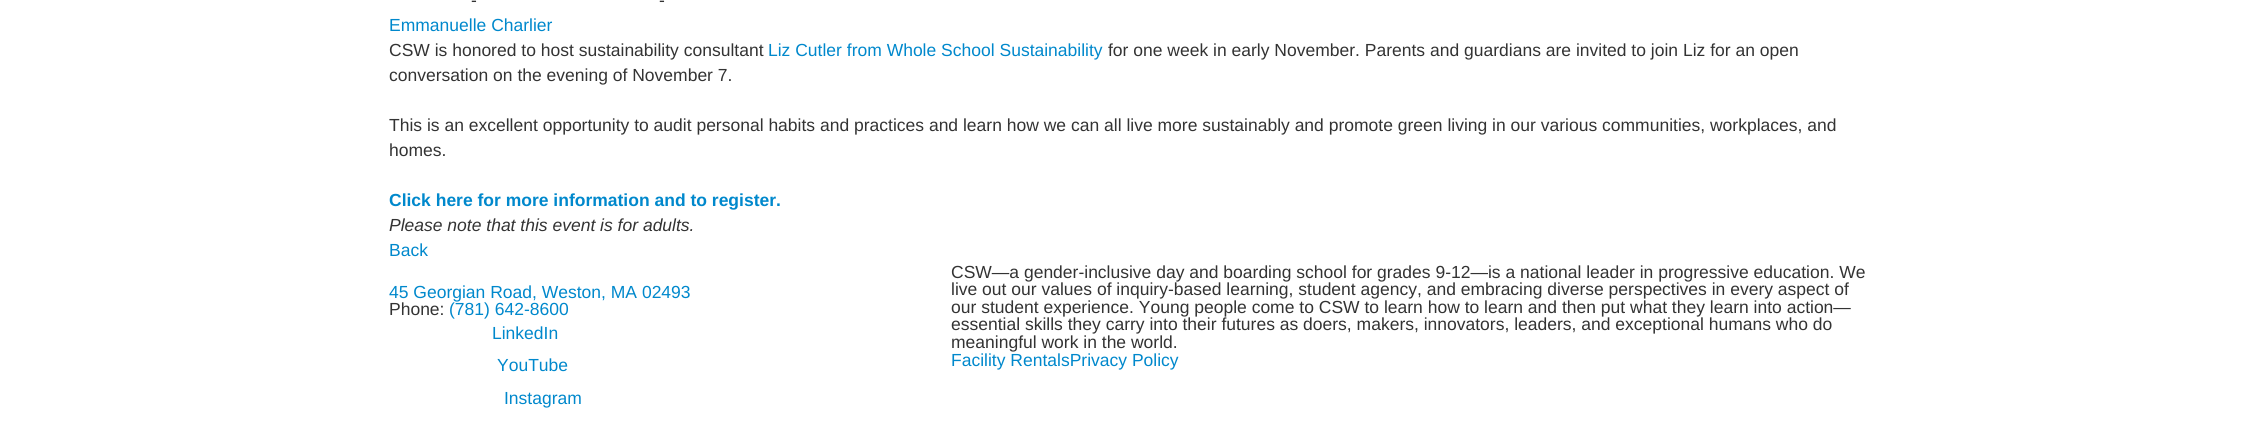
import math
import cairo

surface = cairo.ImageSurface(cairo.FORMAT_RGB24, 2258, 429)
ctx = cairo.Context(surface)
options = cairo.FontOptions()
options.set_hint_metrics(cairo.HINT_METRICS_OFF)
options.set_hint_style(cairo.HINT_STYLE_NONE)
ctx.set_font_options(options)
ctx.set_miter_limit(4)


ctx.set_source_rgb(1, 1, 1)
ctx.paint()
ctx.select_font_face("Liberation Sans")
ctx.set_font_size(17.5)
ctx.set_source_rgb(0.2, 0.2, 0.2)
ctx.move_to(471, 6)
ctx.show_text("-")
ctx.move_to(659, 6)
ctx.show_text("-")
ctx.set_source_rgb(0, 0.533, 0.8)
ctx.move_to(389, 31)
ctx.show_text("Emmanuelle Charlier")
ctx.set_source_rgb(0.2, 0.2, 0.2)
ctx.move_to(389, 56)
ctx.show_text("CSW is honored to host sustainability consultant")
ctx.set_source_rgb(0, 0.533, 0.8)
ctx.move_to(768, 56)
ctx.show_text("Liz Cutler from Whole School Sustainability")
ctx.set_source_rgb(0.2, 0.2, 0.2)
ctx.move_to(1108, 56)
ctx.show_text("for one week in early November. Parents and guardians are invited to join Liz for an open")
ctx.move_to(389, 81)
ctx.show_text("conversation on the evening of November 7.")
ctx.move_to(389, 131)
ctx.show_text("This is an excellent opportunity to audit personal habits and practices and learn how we can all live more sustainably and promote green living in our various communities, workplaces, and")
ctx.move_to(389, 156)
ctx.show_text("homes.")
ctx.select_font_face("Liberation Sans", cairo.FONT_SLANT_NORMAL, cairo.FONT_WEIGHT_BOLD)
ctx.set_source_rgb(0, 0.533, 0.8)
ctx.move_to(389, 206)
ctx.show_text("Click here for more information and to register.")
ctx.select_font_face("Liberation Sans", cairo.FONT_SLANT_ITALIC)
ctx.set_source_rgb(0.2, 0.2, 0.2)
ctx.move_to(389, 231)
ctx.show_text("Please note that this event is for adults.")
ctx.select_font_face("Liberation Sans")
ctx.set_source_rgb(0, 0.533, 0.8)
ctx.move_to(389, 256)
ctx.show_text("Back")
ctx.move_to(389, 298)
ctx.show_text("45 Georgian Road, Weston, MA 02493")
ctx.set_source_rgb(0.2, 0.2, 0.2)
ctx.move_to(389, 315)
ctx.show_text("Phone:")
ctx.set_source_rgb(0, 0.533, 0.8)
ctx.move_to(449, 315)
ctx.show_text("(781) 642-8600")
ctx.move_to(492, 339)
ctx.show_text("LinkedIn")
ctx.move_to(497, 371)
ctx.show_text("YouTube")
ctx.move_to(504, 404)
ctx.show_text("Instagram")
ctx.set_source_rgb(0.2, 0.2, 0.2)
ctx.move_to(951, 278)
ctx.show_text("CSW—a gender-inclusive day and boarding school for grades 9-12—is a national leader in progressive education. We")
ctx.move_to(951, 295)
ctx.show_text("live out our values of inquiry-based learning, student agency, and embracing diverse perspectives in every aspect of")
ctx.move_to(951, 313)
ctx.show_text("our student experience. Young people come to CSW to learn how to learn and then put what they learn into action—")
ctx.move_to(951, 330)
ctx.show_text("essential skills they carry into their futures as doers, makers, innovators, leaders, and exceptional humans who do")
ctx.move_to(951, 348)
ctx.show_text("meaningful work in the world.")
ctx.set_source_rgb(0, 0.533, 0.8)
ctx.move_to(951, 366)
ctx.show_text("Facility RentalsPrivacy Policy")
surface.write_to_png("page.png")
